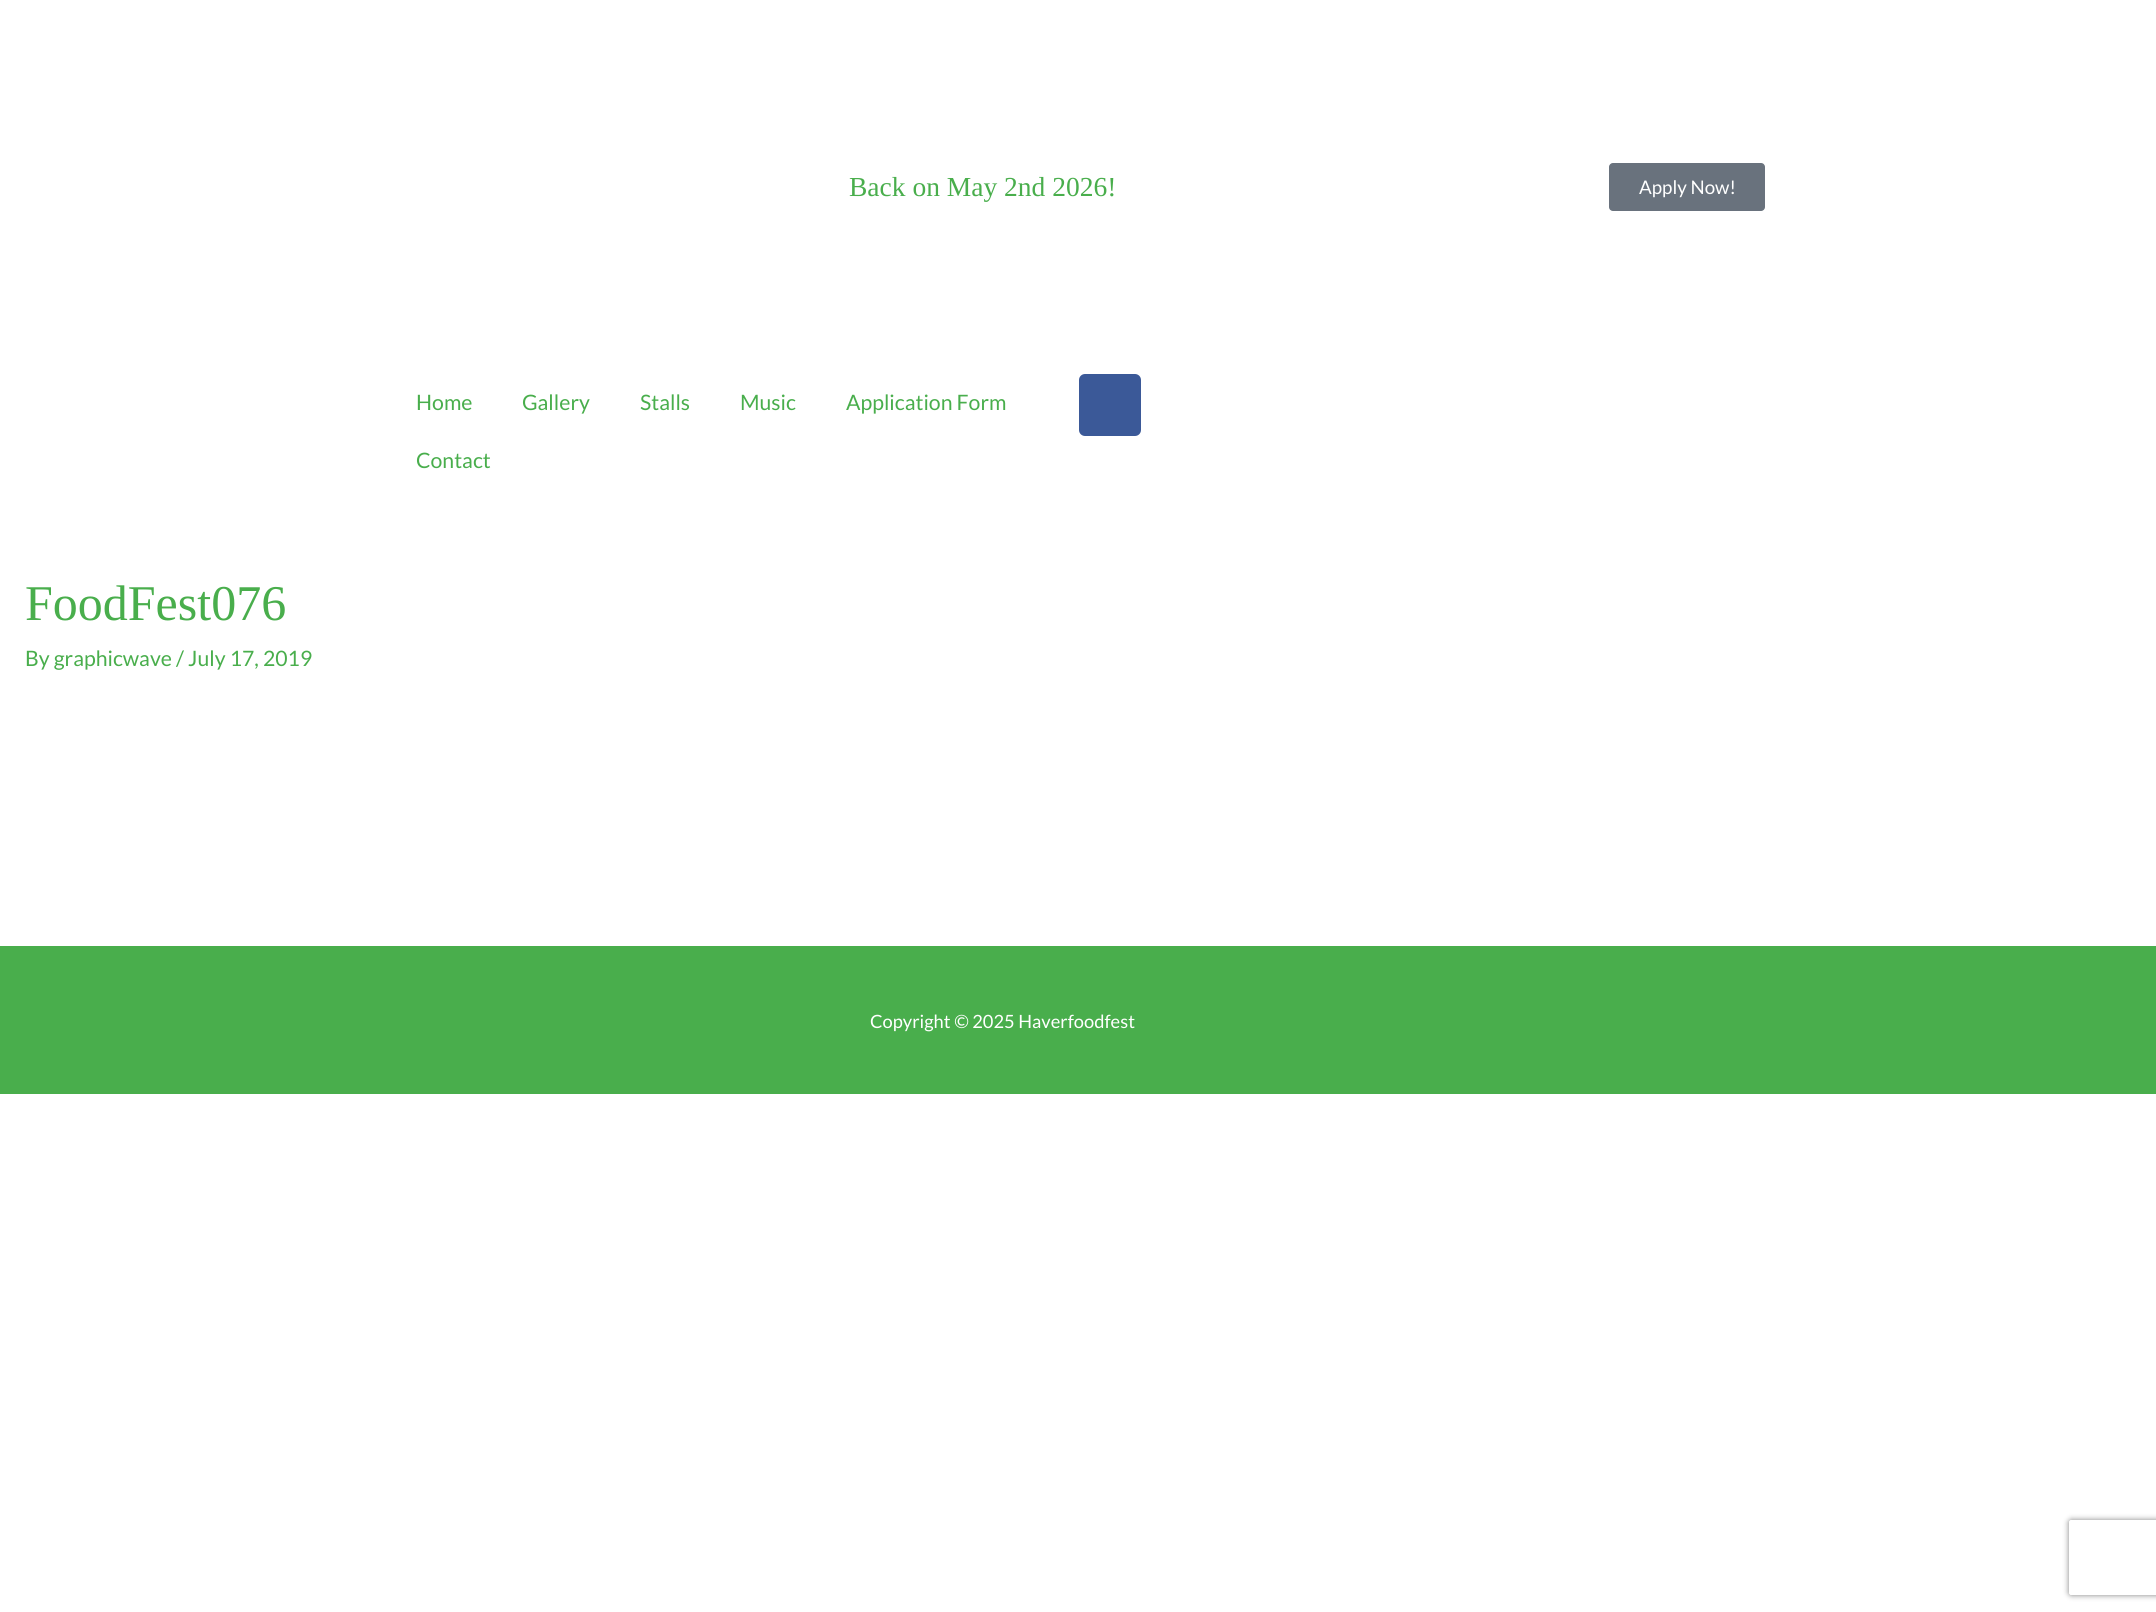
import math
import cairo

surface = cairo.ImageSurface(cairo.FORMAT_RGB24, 2156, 1612)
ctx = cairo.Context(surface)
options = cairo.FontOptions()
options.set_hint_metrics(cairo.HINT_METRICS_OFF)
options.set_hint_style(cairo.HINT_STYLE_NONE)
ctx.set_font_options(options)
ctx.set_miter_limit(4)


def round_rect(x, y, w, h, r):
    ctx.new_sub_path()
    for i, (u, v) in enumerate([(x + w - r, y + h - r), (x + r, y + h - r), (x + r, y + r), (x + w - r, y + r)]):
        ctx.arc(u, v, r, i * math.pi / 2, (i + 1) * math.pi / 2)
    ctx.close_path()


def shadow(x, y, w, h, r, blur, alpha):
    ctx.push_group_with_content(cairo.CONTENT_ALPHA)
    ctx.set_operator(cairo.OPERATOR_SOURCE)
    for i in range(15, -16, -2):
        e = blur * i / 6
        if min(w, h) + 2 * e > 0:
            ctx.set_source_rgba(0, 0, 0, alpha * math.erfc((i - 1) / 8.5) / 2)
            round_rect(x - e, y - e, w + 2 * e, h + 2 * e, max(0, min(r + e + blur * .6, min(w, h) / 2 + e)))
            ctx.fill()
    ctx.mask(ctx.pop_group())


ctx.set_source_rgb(1, 1, 1)
ctx.paint()
ctx.select_font_face("Liberation Serif")
ctx.set_font_size(27.5)
ctx.set_source_rgb(0.286, 0.682, 0.298)
ctx.move_to(849, 196)
ctx.show_text("Back on May 2nd 2026!")
ctx.set_source_rgb(0.412, 0.447, 0.49)
round_rect(1609, 163, 156, 48, 4)
ctx.fill()
ctx.select_font_face("Lato")
ctx.set_font_size(18.75)
ctx.set_source_rgb(1, 1, 1)
ctx.move_to(1639, 194)
ctx.show_text("Apply Now!")
ctx.set_font_size(21.25)
ctx.set_source_rgb(0.286, 0.682, 0.298)
ctx.move_to(416, 410)
ctx.show_text("Home")
ctx.move_to(522, 410)
ctx.show_text("Gallery")
ctx.move_to(640, 410)
ctx.show_text("Stalls")
ctx.move_to(740, 410)
ctx.show_text("Music")
ctx.move_to(846, 410)
ctx.show_text("Application Form")
ctx.move_to(416, 468)
ctx.show_text("Contact")
ctx.set_source_rgb(0.231, 0.349, 0.596)
round_rect(1079, 374, 62, 62, 6)
ctx.fill()
ctx.select_font_face("Liberation Serif")
ctx.set_font_size(50)
ctx.set_source_rgb(0.286, 0.682, 0.298)
ctx.move_to(25, 620)
ctx.show_text("FoodFest076")
ctx.select_font_face("Lato")
ctx.set_font_size(21.25)
ctx.move_to(25, 666)
ctx.show_text("By graphicwave / July 17, 2019")
ctx.rectangle(0, 946, 2156, 148)
ctx.fill()
ctx.set_font_size(18.3)
ctx.set_source_rgb(1, 1, 1)
ctx.move_to(870, 1028)
ctx.show_text("Copyright © 2025 Haverfoodfest")
ctx.save()
ctx.set_fill_rule(cairo.FILL_RULE_EVEN_ODD)
ctx.new_path()
ctx.move_to(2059, 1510)
ctx.line_to(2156, 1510)
ctx.line_to(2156, 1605)
ctx.line_to(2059, 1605)
ctx.close_path()
ctx.move_to(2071.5, 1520)
ctx.line_to(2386.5, 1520)
ctx.curve_to(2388, 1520, 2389, 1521, 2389, 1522.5)
ctx.line_to(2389, 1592.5)
ctx.curve_to(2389, 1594, 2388, 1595, 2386.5, 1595)
ctx.line_to(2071.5, 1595)
ctx.curve_to(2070, 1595, 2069, 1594, 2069, 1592.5)
ctx.line_to(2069, 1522.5)
ctx.curve_to(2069, 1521, 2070, 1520, 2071.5, 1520)
ctx.close_path()
ctx.clip()
ctx.set_source_rgb(0.502, 0.502, 0.502)
shadow(2069, 1520, 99, 75, 2.5, 3, 1)
ctx.restore()
surface.write_to_png("page.png")
